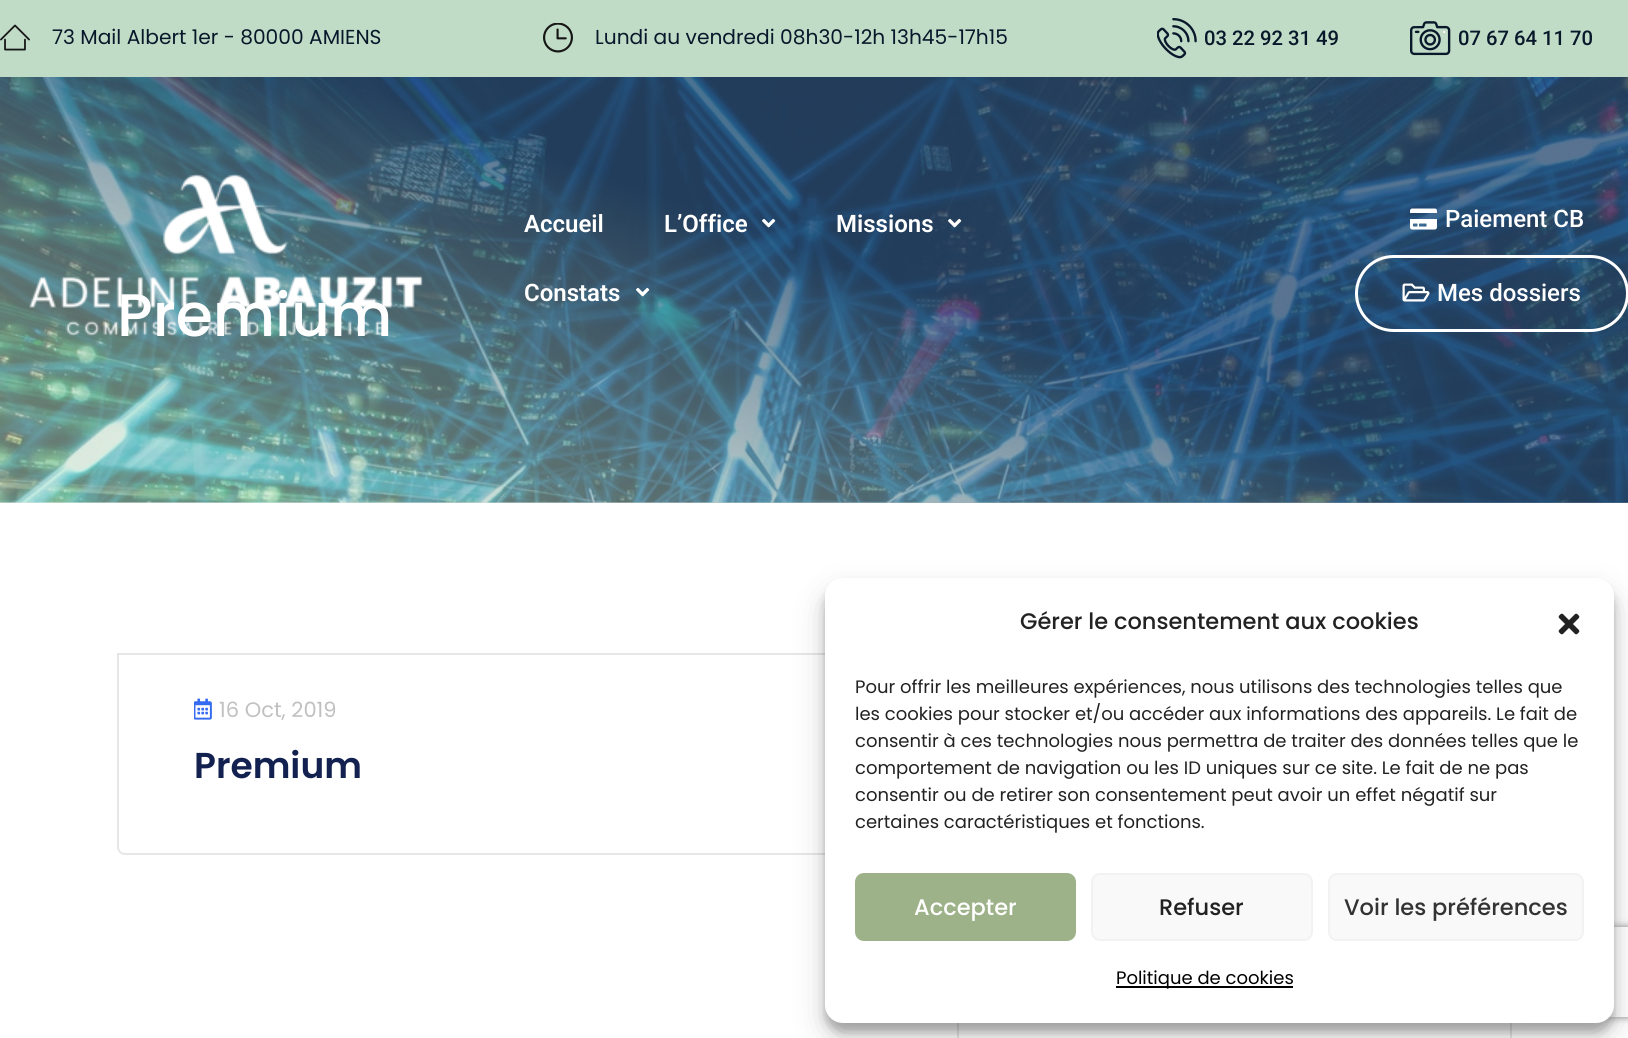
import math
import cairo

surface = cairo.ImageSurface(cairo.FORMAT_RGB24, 1628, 1038)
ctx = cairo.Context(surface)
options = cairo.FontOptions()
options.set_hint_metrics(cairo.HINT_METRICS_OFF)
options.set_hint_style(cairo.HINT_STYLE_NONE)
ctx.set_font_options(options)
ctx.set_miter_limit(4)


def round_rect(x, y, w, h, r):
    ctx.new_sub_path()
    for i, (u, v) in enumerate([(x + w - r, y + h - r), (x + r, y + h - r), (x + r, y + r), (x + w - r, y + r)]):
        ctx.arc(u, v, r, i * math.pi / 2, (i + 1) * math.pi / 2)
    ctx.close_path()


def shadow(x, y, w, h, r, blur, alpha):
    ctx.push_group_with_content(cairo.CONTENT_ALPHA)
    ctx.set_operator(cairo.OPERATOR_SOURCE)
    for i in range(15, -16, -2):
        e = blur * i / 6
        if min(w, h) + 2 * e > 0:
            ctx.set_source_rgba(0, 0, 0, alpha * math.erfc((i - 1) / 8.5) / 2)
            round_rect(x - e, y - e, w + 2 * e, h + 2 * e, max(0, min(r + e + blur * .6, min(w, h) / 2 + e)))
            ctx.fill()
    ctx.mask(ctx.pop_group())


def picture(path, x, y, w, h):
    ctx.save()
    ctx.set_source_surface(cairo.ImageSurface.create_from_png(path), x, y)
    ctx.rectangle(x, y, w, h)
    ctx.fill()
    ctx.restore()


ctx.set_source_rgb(1, 1, 1)
ctx.paint()
ctx.set_source_rgb(0.753, 0.859, 0.776)
ctx.rectangle(0, 0, 1628, 77)
ctx.fill()
picture("img1.png", 0, 24, 30, 27)
ctx.select_font_face("Poppins")
ctx.set_font_size(20.2)
ctx.set_source_rgb(0.035, 0.094, 0.169)
ctx.move_to(52, 44)
ctx.show_text("73 Mail Albert 1er - 80000 AMIENS")
picture("img2.png", 543, 23, 30, 30)
ctx.move_to(595, 44)
ctx.show_text("Lundi au vendredi 08h30-12h 13h45-17h15")
picture("img3.png", 1157, 18, 40, 41)
ctx.select_font_face("Roboto Medium")
ctx.move_to(1204, 45)
ctx.show_text("03 22 92 31 49")
picture("img4.png", 1410, 21, 41, 35)
ctx.move_to(1458, 45)
ctx.show_text("07 67 64 11 70")
picture("img11.png", 0, 77, 1628, 426)
gradient = cairo.LinearGradient(991, -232, 638, 735)
gradient.add_color_stop_rgba(0.5, 0.169, 0.302, 0.451, 0.78)
gradient.add_color_stop_rgba(0.9, 0.753, 0.859, 0.776, 0.53)
ctx.set_source(gradient)
ctx.rectangle(0, 77, 1628, 426)
ctx.fill()
ctx.select_font_face("Poppins Medium")
ctx.set_font_size(60)
ctx.set_source_rgb(1, 1, 1)
ctx.move_to(117, 336)
ctx.show_text("Premium")
picture("img5.png", 29, 174, 394, 162)
ctx.select_font_face("Roboto SemiBold")
ctx.set_font_size(24)
ctx.move_to(524, 232)
ctx.show_text("Accueil")
ctx.move_to(664, 232)
ctx.show_text("L’Office")
picture("img6.png", 762, 218, 14, 10)
ctx.move_to(836, 232)
ctx.show_text("Missions")
picture("img7.png", 948, 218, 14, 10)
ctx.move_to(524, 301)
ctx.show_text("Constats")
picture("img8.png", 636, 287, 14, 10)
picture("img9.png", 1410, 208, 27, 22)
ctx.select_font_face("Roboto Medium")
ctx.move_to(1445, 227)
ctx.show_text("Paiement CB")
round_rect(1356.5, 256.5, 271, 74, 37)
ctx.set_line_width(3)
ctx.stroke()
picture("img10.png", 1402, 283, 28, 19)
ctx.move_to(1437, 301)
ctx.show_text("Mes dossiers")
ctx.new_path()
ctx.move_to(118, 654)
ctx.line_to(911, 654)
ctx.line_to(911, 847)
ctx.curve_to(911, 851, 908, 854, 904, 854)
ctx.line_to(125, 854)
ctx.curve_to(121, 854, 118, 851, 118, 847)
ctx.close_path()
ctx.set_source_rgb(0.902, 0.902, 0.902)
ctx.set_line_width(2)
ctx.stroke()
picture("img12.png", 194, 698, 18, 22)
ctx.select_font_face("Poppins")
ctx.set_font_size(21)
ctx.set_source_rgb(0.753, 0.753, 0.753)
ctx.move_to(219, 717)
ctx.show_text("16 Oct, 2019")
ctx.select_font_face("Poppins SemiBold")
ctx.set_font_size(36)
ctx.set_source_rgb(0.075, 0.129, 0.314)
ctx.move_to(194, 778)
ctx.show_text("Premium")
ctx.rectangle(958, 933, 553, 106)
ctx.set_source_rgb(0.902, 0.902, 0.902)
ctx.stroke()
ctx.set_source_rgb(0, 0, 0)
shadow(825, 587, 789, 445, 18, 4.5, 0.23)
shadow(825, 593, 789, 445, 18, 15, 0.19)
ctx.save()
ctx.set_fill_rule(cairo.FILL_RULE_EVEN_ODD)
ctx.new_path()
ctx.move_to(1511, 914)
ctx.line_to(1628, 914)
ctx.line_to(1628, 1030)
ctx.line_to(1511, 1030)
ctx.close_path()
ctx.move_to(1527, 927)
ctx.line_to(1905, 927)
ctx.curve_to(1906.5, 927, 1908, 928.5, 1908, 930)
ctx.line_to(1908, 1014)
ctx.curve_to(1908, 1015.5, 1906.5, 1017, 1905, 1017)
ctx.line_to(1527, 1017)
ctx.curve_to(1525.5, 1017, 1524, 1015.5, 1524, 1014)
ctx.line_to(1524, 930)
ctx.curve_to(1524, 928.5, 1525.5, 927, 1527, 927)
ctx.close_path()
ctx.clip()
ctx.set_source_rgb(0.502, 0.502, 0.502)
shadow(1524, 927, 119, 90, 3, 4, 1)
ctx.restore()
ctx.set_source_rgb(1, 1, 1)
round_rect(825, 578, 789, 445, 18)
ctx.fill()
ctx.select_font_face("Poppins Medium")
ctx.set_font_size(22.5)
ctx.set_source_rgb(0.133, 0.133, 0.133)
ctx.move_to(1020, 629)
ctx.show_text("Gérer le consentement aux cookies")
picture("img13.png", 1558, 613, 22, 22)
ctx.select_font_face("Poppins")
ctx.set_font_size(18)
ctx.move_to(855, 693)
ctx.show_text("Pour offrir les meilleures expériences, nous utilisons des technologies telles que")
ctx.move_to(855, 720)
ctx.show_text("les cookies pour stocker et/ou accéder aux informations des appareils. Le fait de")
ctx.move_to(855, 747)
ctx.show_text("consentir à ces technologies nous permettra de traiter des données telles que le")
ctx.move_to(855, 774)
ctx.show_text("comportement de navigation ou les ID uniques sur ce site. Le fait de ne pas")
ctx.move_to(855, 801)
ctx.show_text("consentir ou de retirer son consentement peut avoir un effet négatif sur")
ctx.move_to(855, 828)
ctx.show_text("certaines caractéristiques et fonctions.")
ctx.set_source_rgb(0.62, 0.698, 0.537)
round_rect(856, 874, 219, 66, 8)
ctx.fill_preserve()
ctx.stroke()
ctx.select_font_face("Poppins Medium")
ctx.set_font_size(22.5)
ctx.set_source_rgb(1, 1, 1)
ctx.move_to(914, 915)
ctx.show_text("Accepter")
ctx.set_source_rgb(0.976, 0.976, 0.976)
round_rect(1092, 874, 220, 66, 8)
ctx.fill_preserve()
ctx.set_source_rgb(0.949, 0.949, 0.949)
ctx.stroke()
ctx.set_source_rgb(0.133, 0.133, 0.133)
ctx.move_to(1159, 915)
ctx.show_text("Refuser")
ctx.set_source_rgb(0.976, 0.976, 0.976)
round_rect(1329, 874, 254, 66, 8)
ctx.fill_preserve()
ctx.set_source_rgb(0.949, 0.949, 0.949)
ctx.stroke()
ctx.set_source_rgb(0.2, 0.2, 0.2)
ctx.move_to(1344, 915)
ctx.show_text("Voir les préférences")
ctx.set_source_rgb(0, 0, 0)
ctx.rectangle(1116, 986, 177, 2)
ctx.fill()
ctx.select_font_face("Poppins")
ctx.set_font_size(18)
ctx.move_to(1116, 984)
ctx.show_text("Politique de cookies")
surface.write_to_png("page.png")
